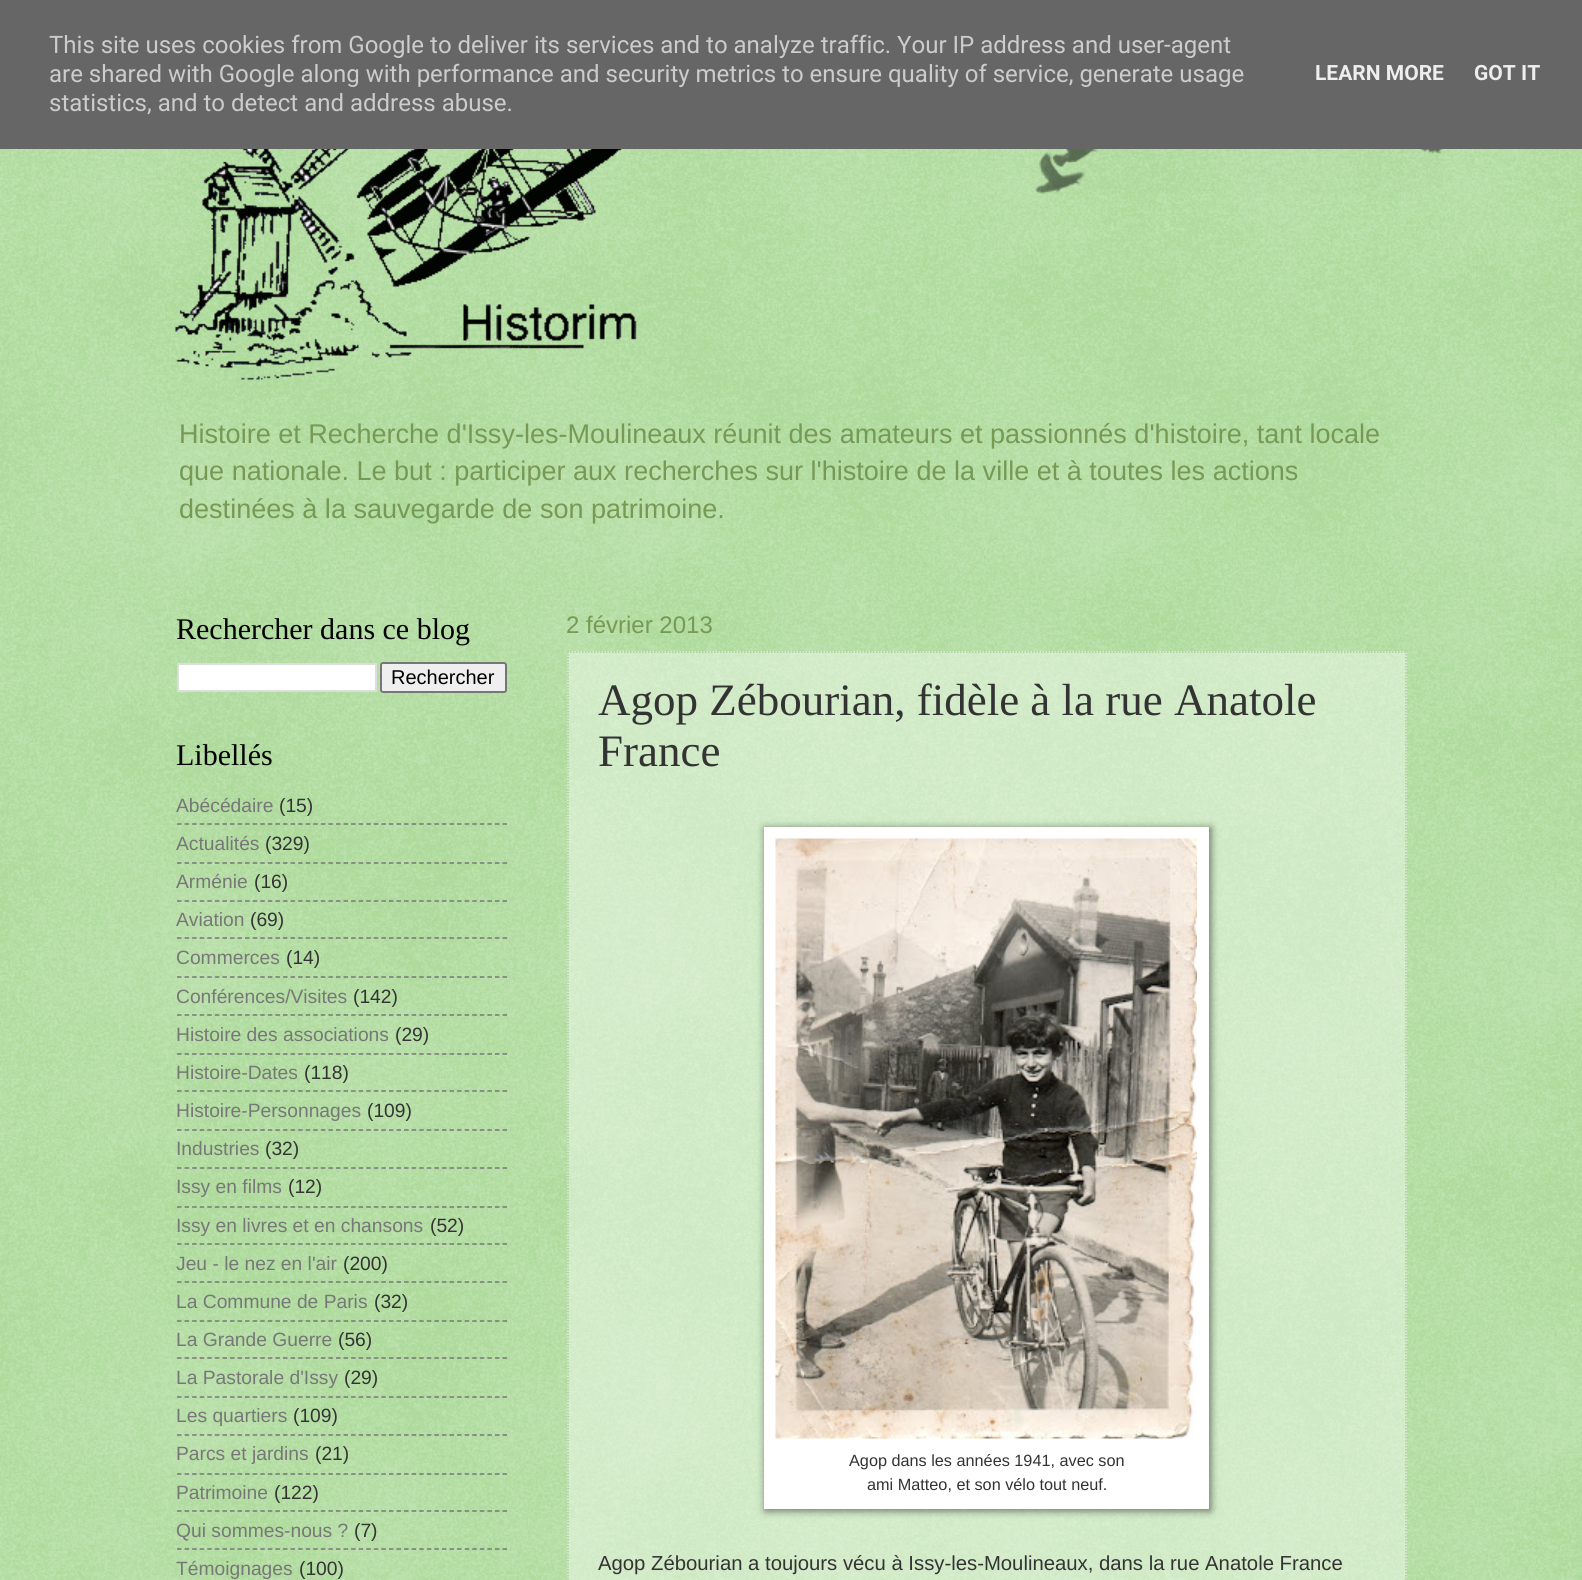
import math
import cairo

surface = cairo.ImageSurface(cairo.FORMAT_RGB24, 1582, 1580)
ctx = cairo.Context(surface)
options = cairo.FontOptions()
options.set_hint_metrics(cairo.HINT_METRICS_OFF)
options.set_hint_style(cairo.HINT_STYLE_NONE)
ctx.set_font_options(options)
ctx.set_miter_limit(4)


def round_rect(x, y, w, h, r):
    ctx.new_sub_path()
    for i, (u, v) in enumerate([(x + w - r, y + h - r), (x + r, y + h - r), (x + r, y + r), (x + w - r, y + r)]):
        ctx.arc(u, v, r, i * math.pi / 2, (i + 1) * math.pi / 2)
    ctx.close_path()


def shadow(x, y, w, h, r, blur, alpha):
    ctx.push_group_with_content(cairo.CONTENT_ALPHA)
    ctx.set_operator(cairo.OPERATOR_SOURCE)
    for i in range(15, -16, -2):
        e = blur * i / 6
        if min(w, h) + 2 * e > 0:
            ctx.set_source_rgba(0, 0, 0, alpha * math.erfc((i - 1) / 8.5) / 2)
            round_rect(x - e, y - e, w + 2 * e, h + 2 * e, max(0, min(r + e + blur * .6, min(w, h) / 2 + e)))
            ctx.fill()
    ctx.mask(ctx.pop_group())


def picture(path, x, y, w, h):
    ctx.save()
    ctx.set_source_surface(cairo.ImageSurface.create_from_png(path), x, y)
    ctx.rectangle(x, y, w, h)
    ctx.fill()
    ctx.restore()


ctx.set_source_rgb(0.451, 0.753, 0.329)
ctx.paint()
ctx.set_source_rgb(0.4, 0.4, 0.4)
ctx.rectangle(0, 0, 1582, 149)
ctx.fill()
ctx.select_font_face("Roboto")
ctx.set_font_size(24)
ctx.set_source_rgb(0.8, 0.8, 0.8)
ctx.move_to(49, 53)
ctx.show_text("This site uses cookies from Google to deliver its services and to analyze traffic. Your IP address and user-agent")
ctx.move_to(49, 82)
ctx.show_text("are shared with Google along with performance and security metrics to ensure quality of service, generate usage")
ctx.move_to(49, 111)
ctx.show_text("statistics, and to detect and address abuse.")
ctx.select_font_face("Roboto", cairo.FONT_SLANT_NORMAL, cairo.FONT_WEIGHT_BOLD)
ctx.set_font_size(21)
ctx.set_source_rgb(0.933, 0.933, 0.933)
ctx.move_to(1315, 80)
ctx.show_text("LEARN MORE")
ctx.move_to(1474, 80)
ctx.show_text("GOT IT")
picture("img1.png", 0, 149, 1582, 1431)
picture("img2.png", 1035, 149, 408, 45)
picture("img3.png", 175, 149, 462, 231)
ctx.select_font_face("Liberation Sans")
ctx.set_font_size(27.05)
ctx.set_source_rgb(0.467, 0.6, 0.333)
ctx.move_to(179, 443)
ctx.show_text("Histoire et Recherche d'Issy-les-Moulineaux réunit des amateurs et passionnés d'histoire, tant locale")
ctx.move_to(179, 480)
ctx.show_text("que nationale. Le but : participer aux recherches sur l'histoire de la ville et à toutes les actions")
ctx.move_to(179, 518)
ctx.show_text("destinées à la sauvegarde de son patrimoine.")
ctx.select_font_face("Liberation Serif")
ctx.set_font_size(30)
ctx.set_source_rgb(0, 0, 0)
ctx.move_to(176, 639)
ctx.show_text("Rechercher dans ce blog")
ctx.set_source_rgb(1, 1, 1)
ctx.rectangle(178, 664, 198, 27)
ctx.fill_preserve()
ctx.set_source_rgb(0.867, 0.867, 0.867)
ctx.stroke()
ctx.set_source_rgb(0.937, 0.937, 0.937)
round_rect(381, 663, 125, 29, 2)
ctx.fill_preserve()
ctx.set_source_rgb(0.463, 0.463, 0.463)
ctx.stroke()
ctx.select_font_face("Liberation Sans")
ctx.set_font_size(20)
ctx.set_source_rgb(0, 0, 0)
ctx.move_to(391, 684)
ctx.show_text("Rechercher")
ctx.select_font_face("Liberation Serif")
ctx.set_font_size(30)
ctx.move_to(176, 765)
ctx.show_text("Libellés")
ctx.select_font_face("Liberation Sans")
ctx.set_font_size(19.25)
ctx.set_source_rgb(0.467, 0.467, 0.467)
ctx.move_to(176, 812)
ctx.show_text("Abécédaire")
ctx.set_source_rgb(0.2, 0.2, 0.2)
ctx.move_to(279, 812)
ctx.show_text("(15)")
ctx.new_path()
ctx.move_to(177, 824)
ctx.line_to(507, 824)
ctx.set_source_rgb(0.467, 0.467, 0.467)
ctx.set_line_width(1.5)
ctx.set_dash([4.5, 3.07])
ctx.stroke()
ctx.move_to(176, 850)
ctx.show_text("Actualités")
ctx.set_source_rgb(0.2, 0.2, 0.2)
ctx.move_to(265, 850)
ctx.show_text("(329)")
ctx.new_path()
ctx.move_to(177, 863)
ctx.line_to(507, 863)
ctx.set_source_rgb(0.467, 0.467, 0.467)
ctx.stroke()
ctx.move_to(176, 888)
ctx.show_text("Arménie")
ctx.set_source_rgb(0.2, 0.2, 0.2)
ctx.move_to(254, 888)
ctx.show_text("(16)")
ctx.new_path()
ctx.move_to(177, 901)
ctx.line_to(507, 901)
ctx.set_source_rgb(0.467, 0.467, 0.467)
ctx.stroke()
ctx.move_to(176, 926)
ctx.show_text("Aviation")
ctx.set_source_rgb(0.2, 0.2, 0.2)
ctx.move_to(250, 926)
ctx.show_text("(69)")
ctx.new_path()
ctx.move_to(177, 938)
ctx.line_to(507, 938)
ctx.set_source_rgb(0.467, 0.467, 0.467)
ctx.stroke()
ctx.move_to(176, 964)
ctx.show_text("Commerces")
ctx.set_source_rgb(0.2, 0.2, 0.2)
ctx.move_to(286, 964)
ctx.show_text("(14)")
ctx.new_path()
ctx.move_to(177, 977)
ctx.line_to(507, 977)
ctx.set_source_rgb(0.467, 0.467, 0.467)
ctx.stroke()
ctx.move_to(176, 1003)
ctx.show_text("Conférences/Visites")
ctx.set_source_rgb(0.2, 0.2, 0.2)
ctx.move_to(353, 1003)
ctx.show_text("(142)")
ctx.new_path()
ctx.move_to(177, 1015)
ctx.line_to(507, 1015)
ctx.set_source_rgb(0.467, 0.467, 0.467)
ctx.stroke()
ctx.move_to(176, 1041)
ctx.show_text("Histoire des associations")
ctx.set_source_rgb(0.2, 0.2, 0.2)
ctx.move_to(395, 1041)
ctx.show_text("(29)")
ctx.new_path()
ctx.move_to(177, 1054)
ctx.line_to(507, 1054)
ctx.set_source_rgb(0.467, 0.467, 0.467)
ctx.stroke()
ctx.move_to(176, 1079)
ctx.show_text("Histoire-Dates")
ctx.set_source_rgb(0.2, 0.2, 0.2)
ctx.move_to(304, 1079)
ctx.show_text("(118)")
ctx.new_path()
ctx.move_to(177, 1091)
ctx.line_to(507, 1091)
ctx.set_source_rgb(0.467, 0.467, 0.467)
ctx.stroke()
ctx.move_to(176, 1117)
ctx.show_text("Histoire-Personnages")
ctx.set_source_rgb(0.2, 0.2, 0.2)
ctx.move_to(367, 1117)
ctx.show_text("(109)")
ctx.new_path()
ctx.move_to(177, 1130)
ctx.line_to(507, 1130)
ctx.set_source_rgb(0.467, 0.467, 0.467)
ctx.stroke()
ctx.move_to(176, 1155)
ctx.show_text("Industries")
ctx.set_source_rgb(0.2, 0.2, 0.2)
ctx.move_to(265, 1155)
ctx.show_text("(32)")
ctx.new_path()
ctx.move_to(177, 1168)
ctx.line_to(507, 1168)
ctx.set_source_rgb(0.467, 0.467, 0.467)
ctx.stroke()
ctx.move_to(176, 1193)
ctx.show_text("Issy en films")
ctx.set_source_rgb(0.2, 0.2, 0.2)
ctx.move_to(288, 1193)
ctx.show_text("(12)")
ctx.new_path()
ctx.move_to(177, 1207)
ctx.line_to(507, 1207)
ctx.set_source_rgb(0.467, 0.467, 0.467)
ctx.stroke()
ctx.move_to(176, 1232)
ctx.show_text("Issy en livres et en chansons")
ctx.set_source_rgb(0.2, 0.2, 0.2)
ctx.move_to(430, 1232)
ctx.show_text("(52)")
ctx.new_path()
ctx.move_to(177, 1244)
ctx.line_to(507, 1244)
ctx.set_source_rgb(0.467, 0.467, 0.467)
ctx.stroke()
ctx.move_to(176, 1270)
ctx.show_text("Jeu - le nez en l'air")
ctx.set_source_rgb(0.2, 0.2, 0.2)
ctx.move_to(343, 1270)
ctx.show_text("(200)")
ctx.new_path()
ctx.move_to(177, 1282)
ctx.line_to(507, 1282)
ctx.set_source_rgb(0.467, 0.467, 0.467)
ctx.stroke()
ctx.move_to(176, 1308)
ctx.show_text("La Commune de Paris")
ctx.set_source_rgb(0.2, 0.2, 0.2)
ctx.move_to(374, 1308)
ctx.show_text("(32)")
ctx.new_path()
ctx.move_to(177, 1321)
ctx.line_to(507, 1321)
ctx.set_source_rgb(0.467, 0.467, 0.467)
ctx.stroke()
ctx.move_to(176, 1346)
ctx.show_text("La Grande Guerre")
ctx.set_source_rgb(0.2, 0.2, 0.2)
ctx.move_to(338, 1346)
ctx.show_text("(56)")
ctx.new_path()
ctx.move_to(177, 1358)
ctx.line_to(507, 1358)
ctx.set_source_rgb(0.467, 0.467, 0.467)
ctx.stroke()
ctx.move_to(176, 1384)
ctx.show_text("La Pastorale d'Issy")
ctx.set_source_rgb(0.2, 0.2, 0.2)
ctx.move_to(344, 1384)
ctx.show_text("(29)")
ctx.new_path()
ctx.move_to(177, 1397)
ctx.line_to(507, 1397)
ctx.set_source_rgb(0.467, 0.467, 0.467)
ctx.stroke()
ctx.move_to(176, 1422)
ctx.show_text("Les quartiers")
ctx.set_source_rgb(0.2, 0.2, 0.2)
ctx.move_to(293, 1422)
ctx.show_text("(109)")
ctx.new_path()
ctx.move_to(177, 1435)
ctx.line_to(507, 1435)
ctx.set_source_rgb(0.467, 0.467, 0.467)
ctx.stroke()
ctx.move_to(176, 1460)
ctx.show_text("Parcs et jardins")
ctx.set_source_rgb(0.2, 0.2, 0.2)
ctx.move_to(315, 1460)
ctx.show_text("(21)")
ctx.new_path()
ctx.move_to(177, 1474)
ctx.line_to(507, 1474)
ctx.set_source_rgb(0.467, 0.467, 0.467)
ctx.stroke()
ctx.move_to(176, 1499)
ctx.show_text("Patrimoine")
ctx.set_source_rgb(0.2, 0.2, 0.2)
ctx.move_to(274, 1499)
ctx.show_text("(122)")
ctx.new_path()
ctx.move_to(177, 1511)
ctx.line_to(507, 1511)
ctx.set_source_rgb(0.467, 0.467, 0.467)
ctx.stroke()
ctx.move_to(176, 1537)
ctx.show_text("Qui sommes-nous ?")
ctx.set_source_rgb(0.2, 0.2, 0.2)
ctx.move_to(354, 1537)
ctx.show_text("(7)")
ctx.new_path()
ctx.move_to(177, 1549)
ctx.line_to(507, 1549)
ctx.set_source_rgb(0.467, 0.467, 0.467)
ctx.stroke()
ctx.move_to(176, 1575)
ctx.show_text("Témoignages")
ctx.set_source_rgb(0.2, 0.2, 0.2)
ctx.move_to(299, 1575)
ctx.show_text("(100)")
ctx.set_font_size(24)
ctx.set_source_rgb(0.467, 0.6, 0.333)
ctx.move_to(566, 633)
ctx.show_text("2 février 2013")
ctx.set_source_rgba(1, 1, 1, 0.4)
ctx.rectangle(567, 651, 840, 929)
ctx.fill()
ctx.new_path()
ctx.move_to(567, 652)
ctx.line_to(1407, 652)
ctx.set_source_rgb(0.663, 0.8, 0.6)
ctx.set_dash([1.5, 1.5])
ctx.stroke()
ctx.new_path()
ctx.move_to(1406, 651)
ctx.line_to(1406, 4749)
ctx.stroke()
ctx.new_path()
ctx.move_to(568, 651)
ctx.line_to(568, 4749)
ctx.stroke()
ctx.select_font_face("Liberation Serif")
ctx.set_font_size(45)
ctx.set_source_rgb(0.2, 0.2, 0.2)
ctx.move_to(598, 715)
ctx.show_text("Agop Zébourian, fidèle à la rue Anatole")
ctx.move_to(598, 766)
ctx.show_text("France")
ctx.set_source_rgb(0, 0, 0)
shadow(765, 828, 446, 683, 0, 4, 0.5)
ctx.set_source_rgb(1, 1, 1)
ctx.rectangle(764, 827, 445, 682)
ctx.fill()
picture("img4.png", 775, 838, 422, 601)
ctx.select_font_face("Liberation Sans")
ctx.set_font_size(16.25)
ctx.set_source_rgb(0.2, 0.2, 0.2)
ctx.move_to(849, 1466)
ctx.show_text("Agop dans les années 1941, avec son")
ctx.move_to(867, 1490)
ctx.show_text("ami Matteo, et son vélo tout neuf.")
ctx.set_font_size(20.3)
ctx.move_to(598, 1570)
ctx.show_text("Agop Zébourian a toujours vécu à Issy-les-Moulineaux, dans la rue Anatole France")
surface.write_to_png("page.png")
